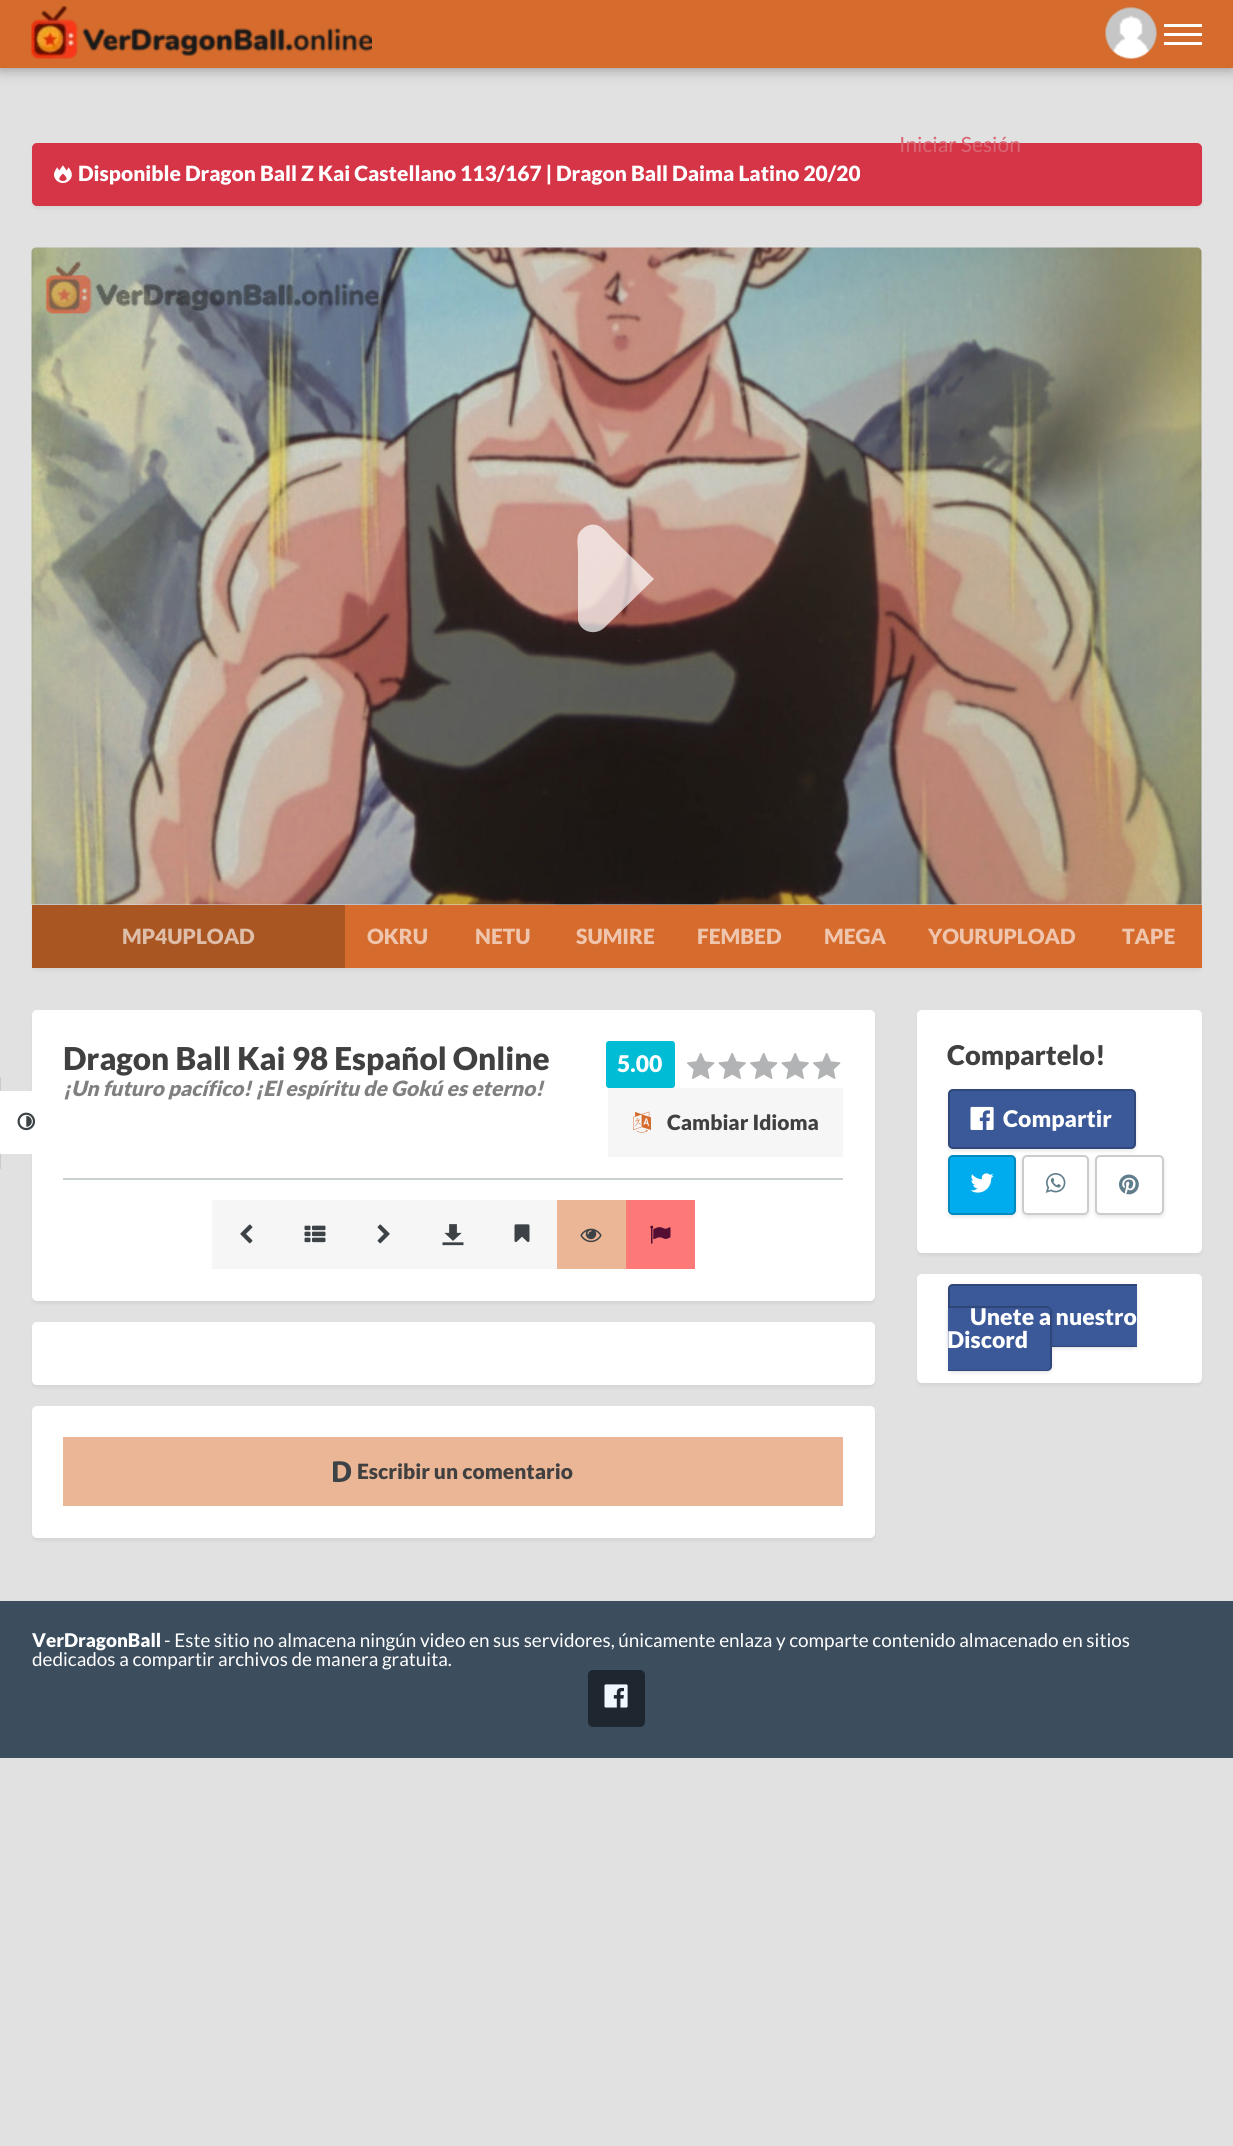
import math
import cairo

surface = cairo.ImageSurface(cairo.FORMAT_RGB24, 1233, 2146)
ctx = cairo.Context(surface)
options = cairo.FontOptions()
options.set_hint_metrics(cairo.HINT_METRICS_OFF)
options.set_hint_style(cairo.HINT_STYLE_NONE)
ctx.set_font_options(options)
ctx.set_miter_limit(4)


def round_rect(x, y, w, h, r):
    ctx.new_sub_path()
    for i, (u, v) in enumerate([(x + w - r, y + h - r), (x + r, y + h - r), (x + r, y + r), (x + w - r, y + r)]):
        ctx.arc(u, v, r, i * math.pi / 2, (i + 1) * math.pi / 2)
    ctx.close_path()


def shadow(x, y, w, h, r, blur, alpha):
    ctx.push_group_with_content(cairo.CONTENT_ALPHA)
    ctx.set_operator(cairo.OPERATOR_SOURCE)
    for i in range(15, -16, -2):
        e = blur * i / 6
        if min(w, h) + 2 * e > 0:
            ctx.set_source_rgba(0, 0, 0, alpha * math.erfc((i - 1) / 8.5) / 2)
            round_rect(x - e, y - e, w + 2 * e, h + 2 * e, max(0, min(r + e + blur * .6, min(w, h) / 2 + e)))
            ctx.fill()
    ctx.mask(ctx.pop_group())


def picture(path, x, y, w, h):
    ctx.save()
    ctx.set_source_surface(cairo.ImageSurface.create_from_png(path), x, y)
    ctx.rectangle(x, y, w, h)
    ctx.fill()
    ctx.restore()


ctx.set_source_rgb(0.882, 0.882, 0.882)
ctx.paint()
ctx.set_source_rgb(0.796, 0.796, 0.796)
ctx.rectangle(0, 1077, 1, 92)
ctx.fill()
ctx.set_source_rgb(0, 0, 0)
shadow(32, 1013, 843, 291, 5, 1.5, 0.05)
ctx.set_source_rgb(1, 1, 1)
round_rect(32, 1010, 843, 291, 5)
ctx.fill()
ctx.new_path()
ctx.move_to(-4, 1091)
ctx.line_to(53, 1091)
ctx.curve_to(56.5, 1091, 59, 1093.5, 59, 1097)
ctx.line_to(59, 1154)
ctx.line_to(2, 1154)
ctx.curve_to(-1.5, 1154, -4, 1151.5, -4, 1148)
ctx.close_path()
ctx.fill()
picture("img1.png", 17, 1112, 19, 19)
ctx.set_source_rgb(0, 0, 0)
shadow(0, 0, 1233, 68, 0, 7.5, 0.4)
ctx.set_source_rgb(0.835, 0.42, 0.173)
ctx.rectangle(0, 0, 1233, 68)
ctx.fill()
ctx.set_source_rgb(1, 1, 1)
ctx.rectangle(1164, 33, 38, 3)
ctx.fill()
ctx.rectangle(1164, 24, 38, 3)
ctx.fill()
ctx.rectangle(1164, 42, 38, 3)
ctx.fill()
picture("img2.png", 31, 6, 341, 53)
picture("img3.png", 1105, 7, 52, 52)
ctx.set_source_rgb(0, 0, 0)
shadow(32, 146, 1170, 63, 5, 1.5, 0.05)
ctx.set_source_rgb(0.839, 0.204, 0.278)
round_rect(32, 143, 1170, 63, 5)
ctx.fill()
ctx.select_font_face("Lato")
ctx.set_font_size(21)
ctx.set_source_rgb(0.851, 0.4, 0.451)
ctx.move_to(899, 152)
ctx.show_text("Iniciar Sesión")
picture("img4.png", 54, 165, 18, 19)
ctx.select_font_face("Lato Black")
ctx.set_source_rgb(1, 1, 1)
ctx.move_to(78, 181)
ctx.show_text("Disponible Dragon Ball Z Kai Castellano 113/167 | Dragon Ball Daima Latino 20/20")
picture("img5.png", 31, 247, 1171, 658)
ctx.set_source_rgba(1, 1, 1, 0.7)
ctx.new_path()
ctx.move_to(604, 628)
ctx.curve_to(595, 636, 580, 632, 578, 620)
ctx.line_to(578, 553)
ctx.curve_to(578, 548, 576, 539, 579, 533)
ctx.curve_to(581, 530, 584, 527, 587, 526)
ctx.curve_to(598, 521, 605, 530, 612, 538)
ctx.line_to(654, 579)
ctx.close_path()
ctx.fill()
ctx.set_source_rgb(0, 0, 0)
shadow(32, 908, 1170, 63, 5, 1.5, 0.05)
ctx.set_source_rgb(0.835, 0.42, 0.173)
ctx.rectangle(345, 905, 857, 63)
ctx.fill()
ctx.set_source_rgb(0.667, 0.337, 0.137)
ctx.rectangle(32, 905, 313, 63)
ctx.fill()
ctx.set_source_rgb(0.871, 0.741, 0.663)
ctx.move_to(122, 944)
ctx.show_text("MP4UPLOAD")
ctx.set_source_rgb(0.937, 0.773, 0.678)
ctx.move_to(367, 944)
ctx.show_text("OKRU")
ctx.move_to(475, 944)
ctx.show_text("NETU")
ctx.move_to(576, 944)
ctx.show_text("SUMIRE")
ctx.move_to(697, 944)
ctx.show_text("FEMBED")
ctx.move_to(824, 944)
ctx.show_text("MEGA")
ctx.move_to(928, 944)
ctx.show_text("YOURUPLOAD")
ctx.move_to(1122, 944)
ctx.show_text("TAPE")
ctx.set_source_rgb(0.788, 0.82, 0.827)
ctx.rectangle(63, 1178, 780, 2)
ctx.fill()
ctx.set_font_size(31.5)
ctx.set_source_rgb(0.251, 0.251, 0.251)
ctx.move_to(63, 1070)
ctx.show_text("Dragon Ball Kai 98 Español Online")
ctx.select_font_face("Lato Black", cairo.FONT_SLANT_ITALIC)
ctx.set_font_size(21)
ctx.set_source_rgb(0.502, 0.502, 0.502)
ctx.move_to(63, 1096)
ctx.show_text("¡Un futuro pacífico! ¡El espíritu de Gokú es eterno!")
ctx.set_source_rgb(0, 0.737, 0.831)
round_rect(606, 1041, 69, 47, 3)
ctx.fill()
ctx.select_font_face("Lato Black")
ctx.set_font_size(23)
ctx.set_source_rgb(1, 1, 1)
ctx.move_to(617, 1072)
ctx.show_text("5.00")
picture("img6.png", 687, 1053, 28, 26)
picture("img7.png", 718, 1053, 28, 26)
picture("img6.png", 750, 1053, 28, 26)
picture("img7.png", 781, 1053, 28, 26)
picture("img6.png", 813, 1053, 28, 26)
ctx.set_source_rgb(0.961, 0.961, 0.961)
ctx.rectangle(608, 1088, 235, 69)
ctx.fill()
picture("img8.png", 633, 1111, 18, 22)
ctx.set_font_size(21)
ctx.set_source_rgb(0.251, 0.251, 0.251)
ctx.move_to(667, 1130)
ctx.show_text("Cambiar Idioma")
ctx.set_source_rgb(0.961, 0.961, 0.961)
ctx.rectangle(212, 1200, 345, 69)
ctx.fill()
picture("img9.png", 240, 1224, 13, 20)
picture("img10.png", 514, 1224, 16, 19)
ctx.set_source_rgb(0.918, 0.714, 0.588)
ctx.rectangle(557, 1200, 69, 69)
ctx.fill()
picture("img11.png", 580, 1228, 22, 15)
ctx.set_source_rgb(0.988, 0.475, 0.471)
ctx.rectangle(626, 1200, 69, 69)
ctx.fill()
picture("img12.png", 650, 1225, 21, 19)
picture("img13.png", 304, 1225, 22, 18)
picture("img14.png", 377, 1224, 13, 20)
picture("img15.png", 442, 1224, 22, 22)
ctx.set_source_rgb(0, 0, 0)
shadow(32, 1325, 843, 63, 5, 1.5, 0.05)
ctx.set_source_rgb(1, 1, 1)
round_rect(32, 1322, 843, 63, 5)
ctx.fill()
ctx.set_source_rgb(0, 0, 0)
shadow(32, 1409, 843, 132, 5, 1.5, 0.05)
ctx.set_source_rgb(1, 1, 1)
round_rect(32, 1406, 843, 132, 5)
ctx.fill()
ctx.set_source_rgb(0.918, 0.714, 0.588)
ctx.rectangle(63, 1437, 780, 69)
ctx.fill()
picture("img16.png", 333, 1461, 19, 22)
ctx.set_source_rgb(0.251, 0.251, 0.251)
ctx.move_to(357, 1479)
ctx.show_text("Escribir un comentario")
ctx.set_source_rgb(0, 0, 0)
shadow(917, 1013, 285, 243, 5, 1.5, 0.05)
ctx.set_source_rgb(1, 1, 1)
round_rect(917, 1010, 285, 243, 5)
ctx.fill()
ctx.set_font_size(27.25)
ctx.set_source_rgb(0.251, 0.251, 0.251)
ctx.move_to(947, 1065)
ctx.show_text("Compartelo!")
ctx.set_source_rgb(0, 0, 0)
shadow(948, 1091, 188, 60, 5, 2, 0.1)
ctx.set_source_rgb(0.231, 0.349, 0.596)
round_rect(948, 1089, 188, 60, 5)
ctx.fill()
round_rect(949, 1090, 186, 58, 4)
ctx.set_source_rgba(0, 0, 0, 0.2)
ctx.stroke()
picture("img17.png", 970, 1106, 24, 24)
ctx.set_font_size(23)
ctx.set_source_rgb(1, 1, 1)
ctx.move_to(1003, 1127)
ctx.show_text("Compartir")
ctx.set_source_rgb(0, 0, 0)
shadow(948, 1157, 68, 60, 5, 2, 0.1)
ctx.set_source_rgb(0, 0.675, 0.929)
round_rect(948, 1155, 68, 60, 5)
ctx.fill()
round_rect(949, 1156, 66, 58, 4)
ctx.set_source_rgba(0, 0, 0, 0.2)
ctx.stroke()
picture("img18.png", 970, 1173, 24, 20)
ctx.save()
ctx.set_fill_rule(cairo.FILL_RULE_EVEN_ODD)
ctx.new_path()
ctx.move_to(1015, 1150)
ctx.line_to(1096, 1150)
ctx.line_to(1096, 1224)
ctx.line_to(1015, 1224)
ctx.close_path()
ctx.move_to(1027, 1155)
ctx.line_to(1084, 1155)
ctx.curve_to(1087, 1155, 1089, 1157, 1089, 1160)
ctx.line_to(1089, 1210)
ctx.curve_to(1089, 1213, 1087, 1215, 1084, 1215)
ctx.line_to(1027, 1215)
ctx.curve_to(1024, 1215, 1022, 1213, 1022, 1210)
ctx.line_to(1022, 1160)
ctx.curve_to(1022, 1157, 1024, 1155, 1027, 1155)
ctx.close_path()
ctx.clip()
ctx.set_source_rgb(0, 0, 0)
shadow(1022, 1157, 67, 60, 5, 2, 0.1)
ctx.restore()
round_rect(1023, 1156, 65, 58, 4)
ctx.stroke()
picture("img19.png", 1045, 1173, 21, 20)
ctx.save()
ctx.set_fill_rule(cairo.FILL_RULE_EVEN_ODD)
ctx.new_path()
ctx.move_to(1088, 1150)
ctx.line_to(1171, 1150)
ctx.line_to(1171, 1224)
ctx.line_to(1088, 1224)
ctx.close_path()
ctx.move_to(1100, 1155)
ctx.line_to(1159, 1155)
ctx.curve_to(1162, 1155, 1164, 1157, 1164, 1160)
ctx.line_to(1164, 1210)
ctx.curve_to(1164, 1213, 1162, 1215, 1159, 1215)
ctx.line_to(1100, 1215)
ctx.curve_to(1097, 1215, 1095, 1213, 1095, 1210)
ctx.line_to(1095, 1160)
ctx.curve_to(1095, 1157, 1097, 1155, 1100, 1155)
ctx.close_path()
ctx.clip()
ctx.set_source_rgb(0, 0, 0)
shadow(1095, 1157, 69, 60, 5, 2, 0.1)
ctx.restore()
round_rect(1096, 1156, 67, 58, 4)
ctx.stroke()
picture("img20.png", 1119, 1174, 20, 21)
ctx.set_source_rgb(0, 0, 0)
shadow(917, 1277, 285, 109, 5, 1.5, 0.05)
ctx.set_source_rgb(1, 1, 1)
round_rect(917, 1274, 285, 109, 5)
ctx.fill()
ctx.set_source_rgb(0, 0, 0)
shadow(948, 1286, 189, 63, 5, 2, 0.1)
ctx.set_source_rgb(0.231, 0.349, 0.596)
ctx.new_path()
ctx.move_to(953, 1284)
ctx.line_to(1137, 1284)
ctx.line_to(1137, 1347)
ctx.line_to(953, 1347)
ctx.curve_to(950, 1347, 948, 1345, 948, 1342)
ctx.line_to(948, 1289)
ctx.curve_to(948, 1286, 950, 1284, 953, 1284)
ctx.close_path()
ctx.fill()
ctx.set_source_rgba(0, 0, 0, 0.2)
ctx.set_fill_rule(cairo.FILL_RULE_EVEN_ODD)
ctx.new_path()
ctx.move_to(952, 1284)
ctx.line_to(1137, 1284)
ctx.line_to(1137, 1347)
ctx.line_to(952, 1347)
ctx.curve_to(950, 1347, 948, 1345, 948, 1342)
ctx.line_to(948, 1288)
ctx.curve_to(948, 1286, 950, 1284, 952, 1284)
ctx.close_path()
ctx.move_to(952, 1286)
ctx.line_to(1137, 1286)
ctx.line_to(1137, 1346)
ctx.line_to(952, 1346)
ctx.curve_to(951, 1346, 950, 1344, 950, 1342)
ctx.line_to(950, 1288)
ctx.curve_to(950, 1287, 951, 1286, 952, 1286)
ctx.close_path()
ctx.fill()
ctx.set_source_rgb(0, 0, 0)
shadow(948, 1308, 104, 65, 5, 2, 0.1)
ctx.set_source_rgb(0.231, 0.349, 0.596)
ctx.new_path()
ctx.move_to(948, 1307)
ctx.line_to(1047, 1307)
ctx.curve_to(1050, 1307, 1052, 1309, 1052, 1312)
ctx.line_to(1052, 1366)
ctx.curve_to(1052, 1369, 1050, 1371, 1047, 1371)
ctx.line_to(948, 1371)
ctx.close_path()
ctx.fill()
ctx.set_source_rgba(0, 0, 0, 0.2)
ctx.new_path()
ctx.move_to(948, 1306)
ctx.line_to(1047, 1306)
ctx.curve_to(1049, 1306, 1052, 1309, 1052, 1311)
ctx.line_to(1052, 1366)
ctx.curve_to(1052, 1369, 1049, 1371, 1047, 1371)
ctx.line_to(948, 1371)
ctx.close_path()
ctx.move_to(948, 1308)
ctx.line_to(1047, 1308)
ctx.curve_to(1049, 1308, 1050, 1309, 1050, 1311)
ctx.line_to(1050, 1366)
ctx.curve_to(1050, 1368, 1049, 1370, 1047, 1370)
ctx.line_to(948, 1370)
ctx.close_path()
ctx.fill()
ctx.set_source_rgb(1, 1, 1)
ctx.move_to(970, 1325)
ctx.show_text("Unete a nuestro")
ctx.move_to(947, 1348)
ctx.show_text("Discord")
ctx.set_source_rgb(0.235, 0.302, 0.369)
ctx.rectangle(0, 1601, 1233, 157)
ctx.fill()
ctx.set_font_size(18.9)
ctx.set_source_rgb(1, 1, 1)
ctx.move_to(32, 1647)
ctx.show_text("VerDragonBall")
ctx.select_font_face("Lato")
ctx.move_to(164, 1647)
ctx.show_text("- Este sitio no almacena ningún video en sus servidores, únicamente enlaza y comparte contenido almacenado en sitios")
ctx.move_to(32, 1666)
ctx.show_text("dedicados a compartir archivos de manera gratuita.")
ctx.set_source_rgb(0.118, 0.153, 0.184)
round_rect(588, 1670, 57, 57, 5)
ctx.fill()
picture("img21.png", 604, 1684, 24, 24)
surface.write_to_png("page.png")
